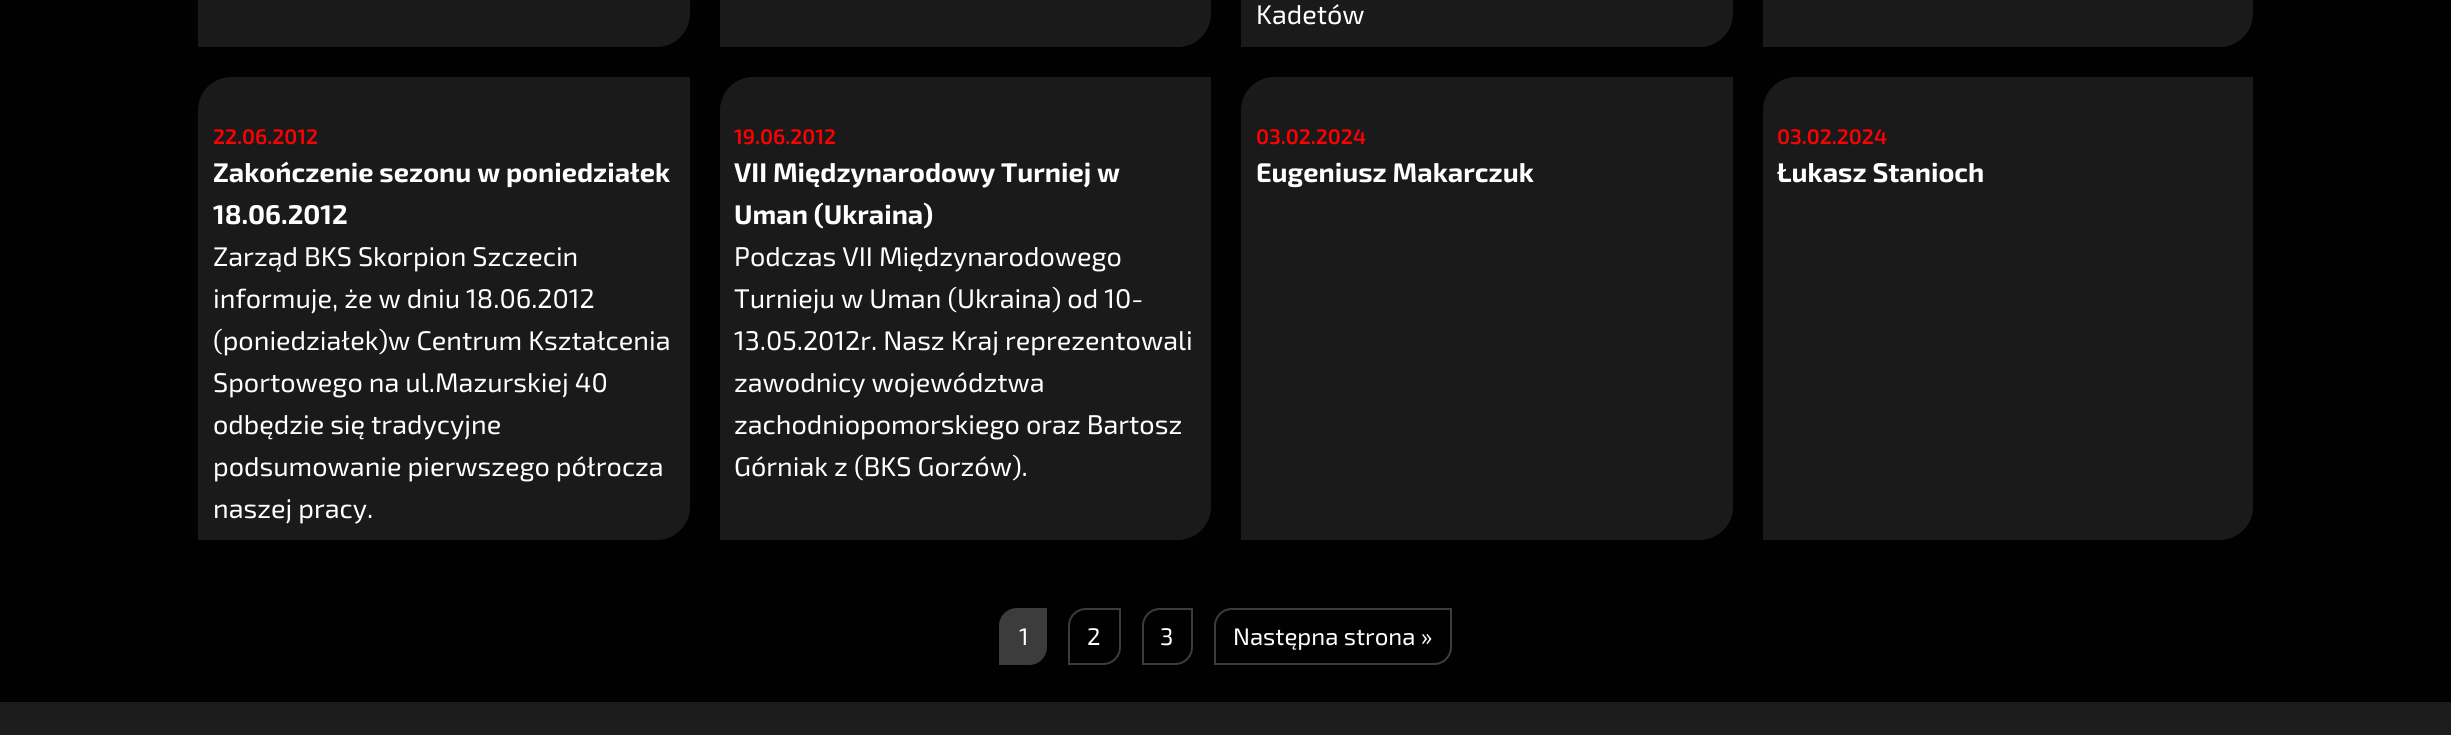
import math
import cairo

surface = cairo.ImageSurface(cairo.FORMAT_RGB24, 2451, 735)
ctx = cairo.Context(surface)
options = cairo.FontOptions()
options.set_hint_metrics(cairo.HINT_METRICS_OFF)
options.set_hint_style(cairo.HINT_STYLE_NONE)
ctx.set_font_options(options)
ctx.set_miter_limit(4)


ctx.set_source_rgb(0.004, 0.004, 0.004)
ctx.paint()
ctx.set_source_rgb(0.102, 0.102, 0.102)
ctx.new_path()
ctx.move_to(231, -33)
ctx.line_to(690, -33)
ctx.line_to(690, 14)
ctx.curve_to(690, 32, 675, 47, 657, 47)
ctx.line_to(198, 47)
ctx.line_to(198, 0)
ctx.curve_to(198, -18, 213, -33, 231, -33)
ctx.close_path()
ctx.fill()
ctx.new_path()
ctx.move_to(753, -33)
ctx.line_to(1211, -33)
ctx.line_to(1211, 14)
ctx.curve_to(1211, 32, 1196, 47, 1178, 47)
ctx.line_to(720, 47)
ctx.line_to(720, 0)
ctx.curve_to(720, -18, 735, -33, 753, -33)
ctx.close_path()
ctx.fill()
ctx.new_path()
ctx.move_to(1274, -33)
ctx.line_to(1733, -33)
ctx.line_to(1733, 14)
ctx.curve_to(1733, 32, 1718, 47, 1700, 47)
ctx.line_to(1241, 47)
ctx.line_to(1241, 0)
ctx.curve_to(1241, -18, 1256, -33, 1274, -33)
ctx.close_path()
ctx.fill()
ctx.select_font_face("Exo 2")
ctx.set_font_size(27)
ctx.set_source_rgb(1, 1, 1)
ctx.move_to(1256, 24)
ctx.show_text("Kadetów")
ctx.set_source_rgb(0.102, 0.102, 0.102)
ctx.new_path()
ctx.move_to(1796, -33)
ctx.line_to(2253, -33)
ctx.line_to(2253, 14)
ctx.curve_to(2253, 32, 2238, 47, 2220, 47)
ctx.line_to(1763, 47)
ctx.line_to(1763, 0)
ctx.curve_to(1763, -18, 1778, -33, 1796, -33)
ctx.close_path()
ctx.fill()
ctx.new_path()
ctx.move_to(231, 77)
ctx.line_to(690, 77)
ctx.line_to(690, 507)
ctx.curve_to(690, 525, 675, 540, 657, 540)
ctx.line_to(198, 540)
ctx.line_to(198, 110)
ctx.curve_to(198, 92, 213, 77, 231, 77)
ctx.close_path()
ctx.fill()
ctx.select_font_face("Exo 2 SemiBold")
ctx.set_font_size(21)
ctx.set_source_rgb(0.996, 0, 0)
ctx.move_to(213, 144)
ctx.show_text("22.06.2012")
ctx.select_font_face("Exo 2", cairo.FONT_SLANT_NORMAL, cairo.FONT_WEIGHT_BOLD)
ctx.set_font_size(27)
ctx.set_source_rgb(1, 1, 1)
ctx.move_to(213, 182)
ctx.show_text("Zakończenie sezonu w poniedziałek")
ctx.move_to(213, 224)
ctx.show_text("18.06.2012")
ctx.select_font_face("Exo 2")
ctx.move_to(213, 266)
ctx.show_text("Zarząd BKS Skorpion Szczecin")
ctx.move_to(213, 308)
ctx.show_text("informuje, że w dniu 18.06.2012")
ctx.move_to(213, 350)
ctx.show_text("(poniedziałek)w Centrum Kształcenia")
ctx.move_to(213, 392)
ctx.show_text("Sportowego na ul.Mazurskiej 40")
ctx.move_to(213, 434)
ctx.show_text("odbędzie się tradycyjne")
ctx.move_to(213, 476)
ctx.show_text("podsumowanie pierwszego półrocza")
ctx.move_to(213, 518)
ctx.show_text("naszej pracy.")
ctx.set_source_rgb(0.102, 0.102, 0.102)
ctx.new_path()
ctx.move_to(753, 77)
ctx.line_to(1211, 77)
ctx.line_to(1211, 507)
ctx.curve_to(1211, 525, 1196, 540, 1178, 540)
ctx.line_to(720, 540)
ctx.line_to(720, 110)
ctx.curve_to(720, 92, 735, 77, 753, 77)
ctx.close_path()
ctx.fill()
ctx.select_font_face("Exo 2 SemiBold")
ctx.set_font_size(21)
ctx.set_source_rgb(0.996, 0, 0)
ctx.move_to(734, 144)
ctx.show_text("19.06.2012")
ctx.select_font_face("Exo 2", cairo.FONT_SLANT_NORMAL, cairo.FONT_WEIGHT_BOLD)
ctx.set_font_size(27)
ctx.set_source_rgb(1, 1, 1)
ctx.move_to(734, 182)
ctx.show_text("VII Międzynarodowy Turniej w")
ctx.move_to(734, 224)
ctx.show_text("Uman (Ukraina)")
ctx.select_font_face("Exo 2")
ctx.move_to(734, 266)
ctx.show_text("Podczas VII Międzynarodowego")
ctx.move_to(734, 308)
ctx.show_text("Turnieju w Uman (Ukraina) od 10-")
ctx.move_to(734, 350)
ctx.show_text("13.05.2012r. Nasz Kraj reprezentowali")
ctx.move_to(734, 392)
ctx.show_text("zawodnicy województwa")
ctx.move_to(734, 434)
ctx.show_text("zachodniopomorskiego oraz Bartosz")
ctx.move_to(734, 476)
ctx.show_text("Górniak z (BKS Gorzów).")
ctx.set_source_rgb(0.102, 0.102, 0.102)
ctx.new_path()
ctx.move_to(1274, 77)
ctx.line_to(1733, 77)
ctx.line_to(1733, 507)
ctx.curve_to(1733, 525, 1718, 540, 1700, 540)
ctx.line_to(1241, 540)
ctx.line_to(1241, 110)
ctx.curve_to(1241, 92, 1256, 77, 1274, 77)
ctx.close_path()
ctx.fill()
ctx.select_font_face("Exo 2 SemiBold")
ctx.set_font_size(21)
ctx.set_source_rgb(0.996, 0, 0)
ctx.move_to(1256, 144)
ctx.show_text("03.02.2024")
ctx.select_font_face("Exo 2", cairo.FONT_SLANT_NORMAL, cairo.FONT_WEIGHT_BOLD)
ctx.set_font_size(27)
ctx.set_source_rgb(1, 1, 1)
ctx.move_to(1256, 182)
ctx.show_text("Eugeniusz Makarczuk")
ctx.set_source_rgb(0.102, 0.102, 0.102)
ctx.new_path()
ctx.move_to(1796, 77)
ctx.line_to(2253, 77)
ctx.line_to(2253, 507)
ctx.curve_to(2253, 525, 2238, 540, 2220, 540)
ctx.line_to(1763, 540)
ctx.line_to(1763, 110)
ctx.curve_to(1763, 92, 1778, 77, 1796, 77)
ctx.close_path()
ctx.fill()
ctx.select_font_face("Exo 2 SemiBold")
ctx.set_font_size(21)
ctx.set_source_rgb(0.996, 0, 0)
ctx.move_to(1777, 144)
ctx.show_text("03.02.2024")
ctx.select_font_face("Exo 2", cairo.FONT_SLANT_NORMAL, cairo.FONT_WEIGHT_BOLD)
ctx.set_font_size(27)
ctx.set_source_rgb(1, 1, 1)
ctx.move_to(1777, 182)
ctx.show_text("Łukasz Stanioch")
ctx.set_source_rgb(0.235, 0.235, 0.235)
ctx.new_path()
ctx.move_to(1017, 609)
ctx.line_to(1046, 609)
ctx.line_to(1046, 647)
ctx.curve_to(1046, 656.5, 1038.5, 664, 1029, 664)
ctx.line_to(1000, 664)
ctx.line_to(1000, 626)
ctx.curve_to(1000, 616.5, 1007.5, 609, 1017, 609)
ctx.close_path()
ctx.fill_preserve()
ctx.stroke()
ctx.select_font_face("Exo 2")
ctx.set_font_size(24)
ctx.set_source_rgb(1, 1, 1)
ctx.move_to(1019, 645)
ctx.show_text("1")
ctx.new_path()
ctx.move_to(1086, 609)
ctx.line_to(1120, 609)
ctx.line_to(1120, 647)
ctx.curve_to(1120, 656.5, 1112.5, 664, 1103, 664)
ctx.line_to(1069, 664)
ctx.line_to(1069, 626)
ctx.curve_to(1069, 616.5, 1076.5, 609, 1086, 609)
ctx.close_path()
ctx.set_source_rgb(0.235, 0.235, 0.235)
ctx.stroke()
ctx.set_source_rgb(1, 1, 1)
ctx.move_to(1087, 645)
ctx.show_text("2")
ctx.new_path()
ctx.move_to(1160, 609)
ctx.line_to(1192, 609)
ctx.line_to(1192, 647)
ctx.curve_to(1192, 656.5, 1184.5, 664, 1175, 664)
ctx.line_to(1143, 664)
ctx.line_to(1143, 626)
ctx.curve_to(1143, 616.5, 1150.5, 609, 1160, 609)
ctx.close_path()
ctx.set_source_rgb(0.235, 0.235, 0.235)
ctx.stroke()
ctx.set_source_rgb(1, 1, 1)
ctx.move_to(1160, 645)
ctx.show_text("3")
ctx.new_path()
ctx.move_to(1232, 609)
ctx.line_to(1451, 609)
ctx.line_to(1451, 647)
ctx.curve_to(1451, 656.5, 1443.5, 664, 1434, 664)
ctx.line_to(1215, 664)
ctx.line_to(1215, 626)
ctx.curve_to(1215, 616.5, 1222.5, 609, 1232, 609)
ctx.close_path()
ctx.set_source_rgb(0.235, 0.235, 0.235)
ctx.stroke()
ctx.set_source_rgb(1, 1, 1)
ctx.move_to(1233, 645)
ctx.show_text("Następna strona »")
gradient = cairo.LinearGradient(1226, 702, 1226, 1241)
gradient.add_color_stop_rgba(0, 0.106, 0.106, 0.106, 1)
gradient.add_color_stop_rgba(1, 0.286, 0.286, 0.286, 1)
ctx.set_source(gradient)
ctx.rectangle(0, 702, 2451, 33)
ctx.fill()
surface.write_to_png("page.png")
